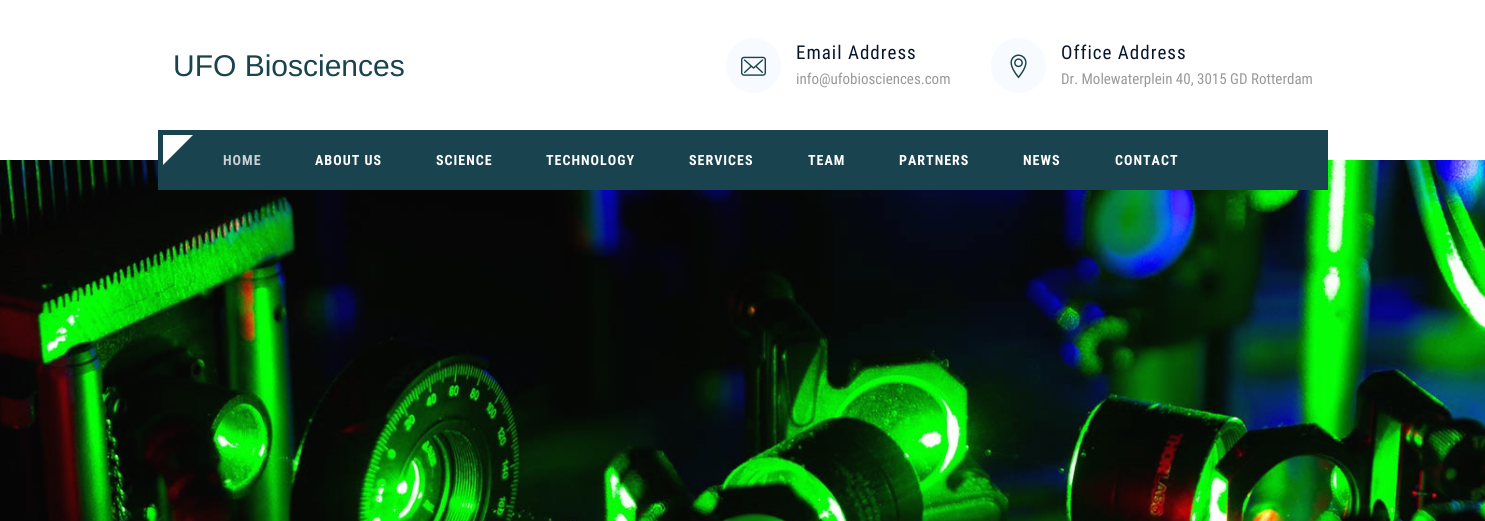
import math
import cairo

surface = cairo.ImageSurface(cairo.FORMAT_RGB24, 1485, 521)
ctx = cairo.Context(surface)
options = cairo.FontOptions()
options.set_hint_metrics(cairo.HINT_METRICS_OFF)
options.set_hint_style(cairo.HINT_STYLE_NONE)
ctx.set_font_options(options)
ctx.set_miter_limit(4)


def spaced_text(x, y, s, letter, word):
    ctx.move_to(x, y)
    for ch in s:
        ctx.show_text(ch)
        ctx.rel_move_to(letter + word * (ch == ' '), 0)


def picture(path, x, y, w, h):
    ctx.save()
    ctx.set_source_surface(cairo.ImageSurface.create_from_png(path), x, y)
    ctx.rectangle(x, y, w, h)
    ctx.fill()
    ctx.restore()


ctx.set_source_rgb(1, 1, 1)
ctx.paint()
ctx.select_font_face("Arimo")
ctx.set_font_size(30)
ctx.set_source_rgb(0.098, 0.263, 0.31)
ctx.move_to(173, 76)
ctx.show_text("UFO Biosciences")
ctx.set_source_rgb(0.965, 0.98, 1)
ctx.new_path()
ctx.arc(753.5, 65.5, 27.5, 0, 2 * math.pi)
ctx.fill()
picture("img1.png", 741, 56, 25, 20)
ctx.select_font_face("Roboto Condensed")
ctx.set_font_size(19)
ctx.set_source_rgb(0.035, 0.086, 0.165)
spaced_text(796, 59, "Email Address", 1, 0)
ctx.set_font_size(15)
ctx.set_source_rgb(0.6, 0.6, 0.6)
ctx.move_to(796, 84)
ctx.show_text("info@ufobiosciences.com")
ctx.set_source_rgb(0.965, 0.98, 1)
ctx.new_path()
ctx.arc(1018.5, 65.5, 27.5, 0, 2 * math.pi)
ctx.fill()
picture("img2.png", 1010, 54, 17, 25)
ctx.set_font_size(19)
ctx.set_source_rgb(0.035, 0.086, 0.165)
spaced_text(1061, 59, "Office Address", 1, 0)
ctx.set_font_size(15)
ctx.set_source_rgb(0.6, 0.6, 0.6)
ctx.move_to(1061, 84)
ctx.show_text("Dr. Molewaterplein 40, 3015 GD Rotterdam")
picture("img3.png", 0, 160, 1485, 361)
ctx.set_source_rgb(0.098, 0.263, 0.31)
ctx.rectangle(158, 130, 1170, 60)
ctx.fill()
ctx.set_source_rgb(1, 1, 1)
ctx.new_path()
ctx.move_to(163, 135)
ctx.line_to(193, 135)
ctx.line_to(163, 165)
ctx.close_path()
ctx.fill()
ctx.select_font_face("Roboto Condensed", cairo.FONT_SLANT_NORMAL, cairo.FONT_WEIGHT_BOLD)
ctx.set_font_size(14)
ctx.set_source_rgb(0.792, 0.82, 0.824)
spaced_text(223, 165, "HOME", 1, 0)
ctx.set_source_rgb(1, 1, 1)
spaced_text(315, 165, "ABOUT US", 1, 0)
spaced_text(436, 165, "SCIENCE", 1, 0)
spaced_text(546, 165, "TECHNOLOGY", 1, 0)
spaced_text(689, 165, "SERVICES", 1, 0)
spaced_text(808, 165, "TEAM", 1, 0)
spaced_text(899, 165, "PARTNERS", 1, 0)
spaced_text(1023, 165, "NEWS", 1, 0)
spaced_text(1115, 165, "CONTACT", 1, 0)
surface.write_to_png("page.png")
